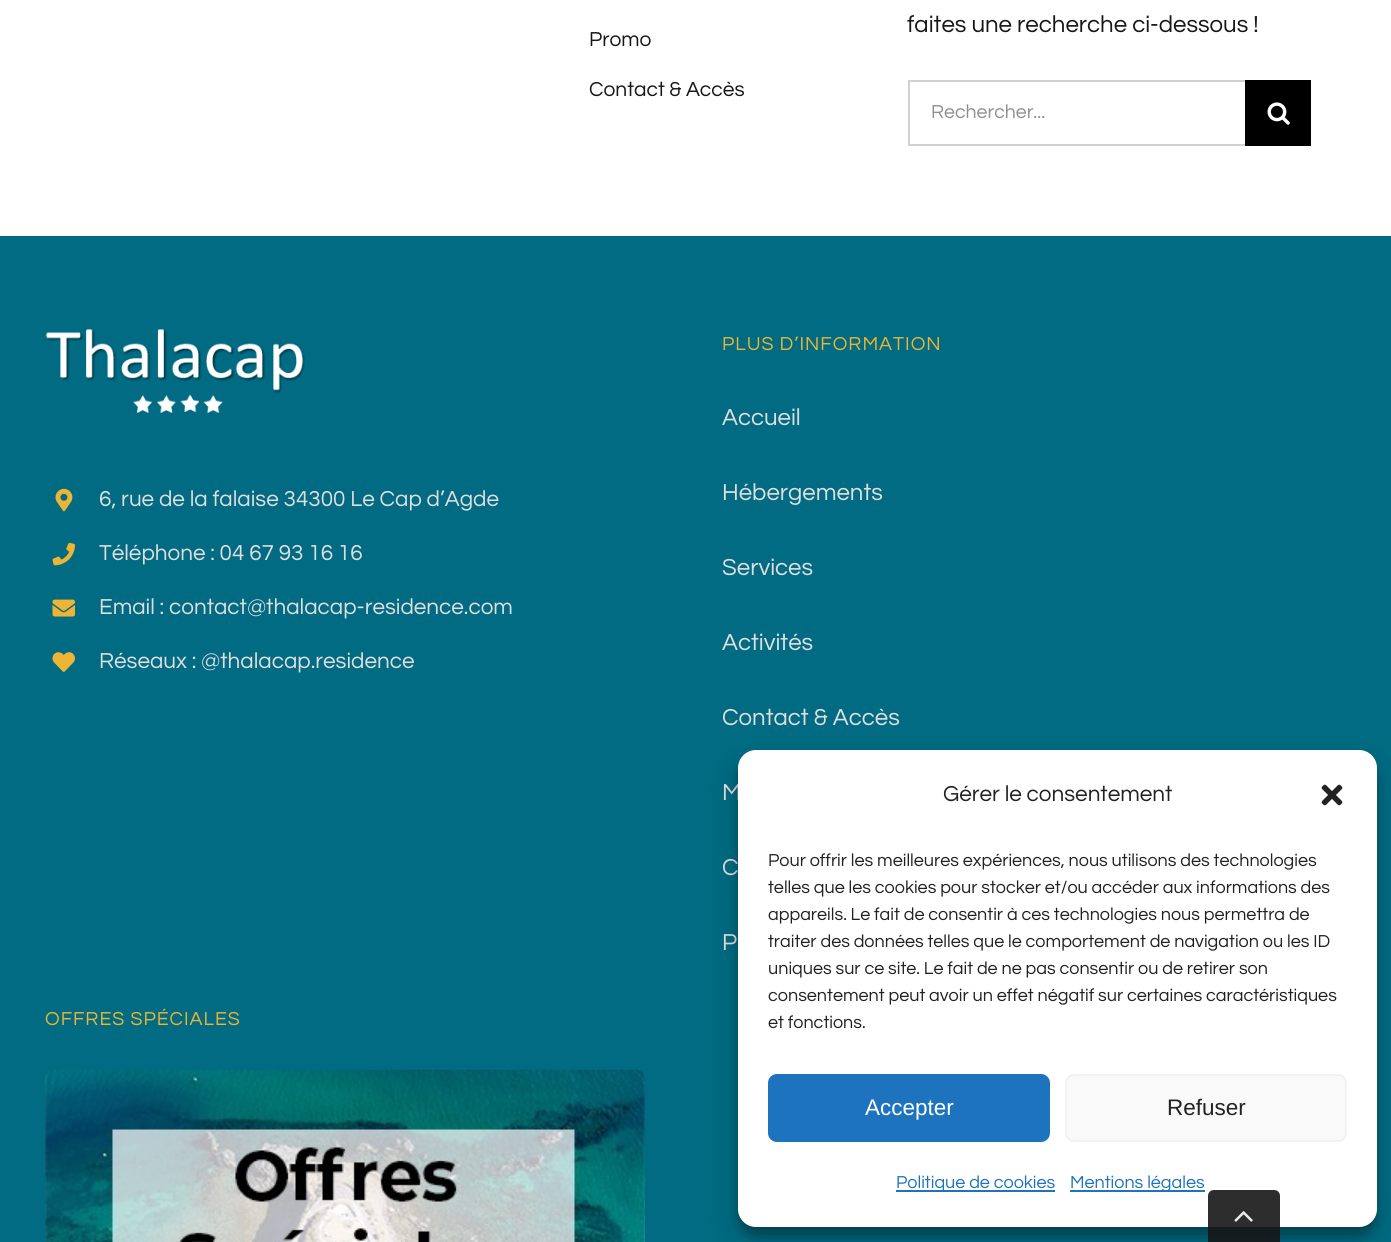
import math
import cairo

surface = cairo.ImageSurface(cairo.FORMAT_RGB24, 1391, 1242)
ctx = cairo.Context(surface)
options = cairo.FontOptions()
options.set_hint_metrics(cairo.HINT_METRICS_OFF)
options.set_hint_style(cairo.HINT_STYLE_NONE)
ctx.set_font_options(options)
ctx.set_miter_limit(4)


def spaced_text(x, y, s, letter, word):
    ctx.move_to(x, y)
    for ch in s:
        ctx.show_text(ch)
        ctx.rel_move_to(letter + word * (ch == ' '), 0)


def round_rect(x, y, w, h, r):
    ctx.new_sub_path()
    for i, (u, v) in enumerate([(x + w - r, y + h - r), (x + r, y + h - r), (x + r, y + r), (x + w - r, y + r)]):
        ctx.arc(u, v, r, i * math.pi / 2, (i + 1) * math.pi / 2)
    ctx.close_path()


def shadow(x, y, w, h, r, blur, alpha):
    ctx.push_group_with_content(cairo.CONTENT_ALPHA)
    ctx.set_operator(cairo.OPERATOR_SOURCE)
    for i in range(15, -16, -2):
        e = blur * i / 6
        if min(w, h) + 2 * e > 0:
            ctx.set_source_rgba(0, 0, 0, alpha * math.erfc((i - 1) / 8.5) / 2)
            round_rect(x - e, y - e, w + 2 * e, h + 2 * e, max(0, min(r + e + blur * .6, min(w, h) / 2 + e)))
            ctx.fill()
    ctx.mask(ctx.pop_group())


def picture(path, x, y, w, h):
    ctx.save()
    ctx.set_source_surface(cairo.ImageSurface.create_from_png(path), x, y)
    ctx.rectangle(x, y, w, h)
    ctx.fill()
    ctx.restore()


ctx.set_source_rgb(1, 1, 1)
ctx.paint()
ctx.select_font_face("Questrial")
ctx.set_font_size(21)
ctx.set_source_rgb(0.09, 0.09, 0.09)
ctx.move_to(589, 46)
ctx.show_text("Promo")
ctx.move_to(589, 96)
ctx.show_text("Contact & Accès")
ctx.set_font_size(24)
ctx.move_to(907, 32)
ctx.show_text("faites une recherche ci-dessous !")
ctx.set_source_rgb(0.82, 0.82, 0.82)
ctx.rectangle(908, 80, 337, 2)
ctx.fill()
ctx.rectangle(908, 144, 337, 2)
ctx.fill()
ctx.rectangle(908, 80, 2, 66)
ctx.fill()
ctx.set_font_size(19.5)
ctx.set_source_rgb(0.561, 0.561, 0.561)
ctx.move_to(931, 118)
ctx.show_text("Rechercher...")
ctx.set_source_rgb(0, 0, 0)
ctx.rectangle(1245, 80, 66, 66)
ctx.fill()
picture("img1.png", 1267, 102, 23, 23)
ctx.set_source_rgb(0, 0.42, 0.51)
ctx.rectangle(0, 236, 1391, 1006)
ctx.fill()
picture("img2.png", 45, 329, 260, 84)
picture("img3.png", 55, 488, 18, 24)
ctx.set_font_size(22.5)
ctx.set_source_rgb(0.878, 0.871, 0.871)
ctx.move_to(99, 506)
ctx.show_text("6, rue de la falaise 34300 Le Cap d’Agde")
picture("img4.png", 52, 542, 23, 24)
ctx.move_to(99, 560)
ctx.show_text("Téléphone : 04 67 93 16 16")
picture("img5.png", 52, 599, 23, 18)
ctx.move_to(99, 614)
ctx.show_text("Email : contact@thalacap-residence.com")
picture("img6.png", 52, 652, 23, 20)
ctx.move_to(99, 668)
ctx.show_text("Réseaux : @thalacap.residence")
ctx.set_font_size(19.5)
ctx.set_source_rgb(0.933, 0.71, 0.204)
spaced_text(722, 350, "PLUS D’INFORMATION", 1, 0)
ctx.set_font_size(24)
ctx.set_source_rgb(0.878, 0.871, 0.871)
ctx.move_to(722, 425)
ctx.show_text("Accueil")
ctx.move_to(722, 500)
ctx.show_text("Hébergements")
ctx.move_to(722, 575)
ctx.show_text("Services")
ctx.move_to(722, 650)
ctx.show_text("Activités")
ctx.move_to(722, 725)
ctx.show_text("Contact & Accès")
ctx.move_to(722, 800)
ctx.show_text("M")
ctx.move_to(722, 875)
ctx.show_text("C")
ctx.move_to(722, 950)
ctx.show_text("P")
ctx.set_font_size(19.5)
ctx.set_source_rgb(0.933, 0.71, 0.204)
spaced_text(45, 1025, "OFFRES SPÉCIALES", 1, 0)
picture("img7.png", 45, 1069, 600, 173)
ctx.set_source_rgb(0, 0, 0)
shadow(738, 759, 639, 477, 18, 4.5, 0.23)
shadow(738, 765, 639, 477, 18, 15, 0.19)
ctx.set_source_rgb(1, 1, 1)
round_rect(738, 750, 639, 477, 18)
ctx.fill()
ctx.set_font_size(22.5)
ctx.set_source_rgb(0.133, 0.133, 0.133)
ctx.move_to(943, 801)
ctx.show_text("Gérer le consentement")
picture("img8.png", 1321, 784, 22, 22)
ctx.set_font_size(18)
ctx.move_to(768, 866)
ctx.show_text("Pour offrir les meilleures expériences, nous utilisons des technologies")
ctx.move_to(768, 893)
ctx.show_text("telles que les cookies pour stocker et/ou accéder aux informations des")
ctx.move_to(768, 920)
ctx.show_text("appareils. Le fait de consentir à ces technologies nous permettra de")
ctx.move_to(768, 947)
ctx.show_text("traiter des données telles que le comportement de navigation ou les ID")
ctx.move_to(768, 974)
ctx.show_text("uniques sur ce site. Le fait de ne pas consentir ou de retirer son")
ctx.move_to(768, 1001)
ctx.show_text("consentement peut avoir un effet négatif sur certaines caractéristiques")
ctx.move_to(768, 1028)
ctx.show_text("et fonctions.")
ctx.set_source_rgb(0.118, 0.451, 0.745)
round_rect(769, 1075, 280, 66, 8)
ctx.fill_preserve()
ctx.stroke()
ctx.select_font_face("Liberation Sans")
ctx.set_font_size(22.5)
ctx.set_source_rgb(1, 1, 1)
ctx.move_to(865, 1115)
ctx.show_text("Accepter")
ctx.set_source_rgb(0.976, 0.976, 0.976)
round_rect(1066, 1075, 280, 66, 8)
ctx.fill_preserve()
ctx.set_source_rgb(0.949, 0.949, 0.949)
ctx.stroke()
ctx.set_source_rgb(0.133, 0.133, 0.133)
ctx.move_to(1167, 1115)
ctx.show_text("Refuser")
ctx.set_source_rgb(0.118, 0.451, 0.745)
ctx.rectangle(896, 1190, 159, 2)
ctx.fill()
ctx.select_font_face("Questrial")
ctx.set_font_size(18)
ctx.move_to(896, 1188)
ctx.show_text("Politique de cookies")
ctx.rectangle(1070, 1190, 135, 2)
ctx.fill()
ctx.move_to(1070, 1188)
ctx.show_text("Mentions légales")
ctx.set_source_rgba(0.09, 0.09, 0.09, 0.9)
ctx.new_path()
ctx.move_to(1214, 1190)
ctx.line_to(1274, 1190)
ctx.curve_to(1277.5, 1190, 1280, 1192.5, 1280, 1196)
ctx.line_to(1280, 1242)
ctx.line_to(1208, 1242)
ctx.line_to(1208, 1196)
ctx.curve_to(1208, 1192.5, 1210.5, 1190, 1214, 1190)
ctx.close_path()
ctx.fill()
picture("img9.png", 1234, 1211, 19, 11)
surface.write_to_png("page.png")
